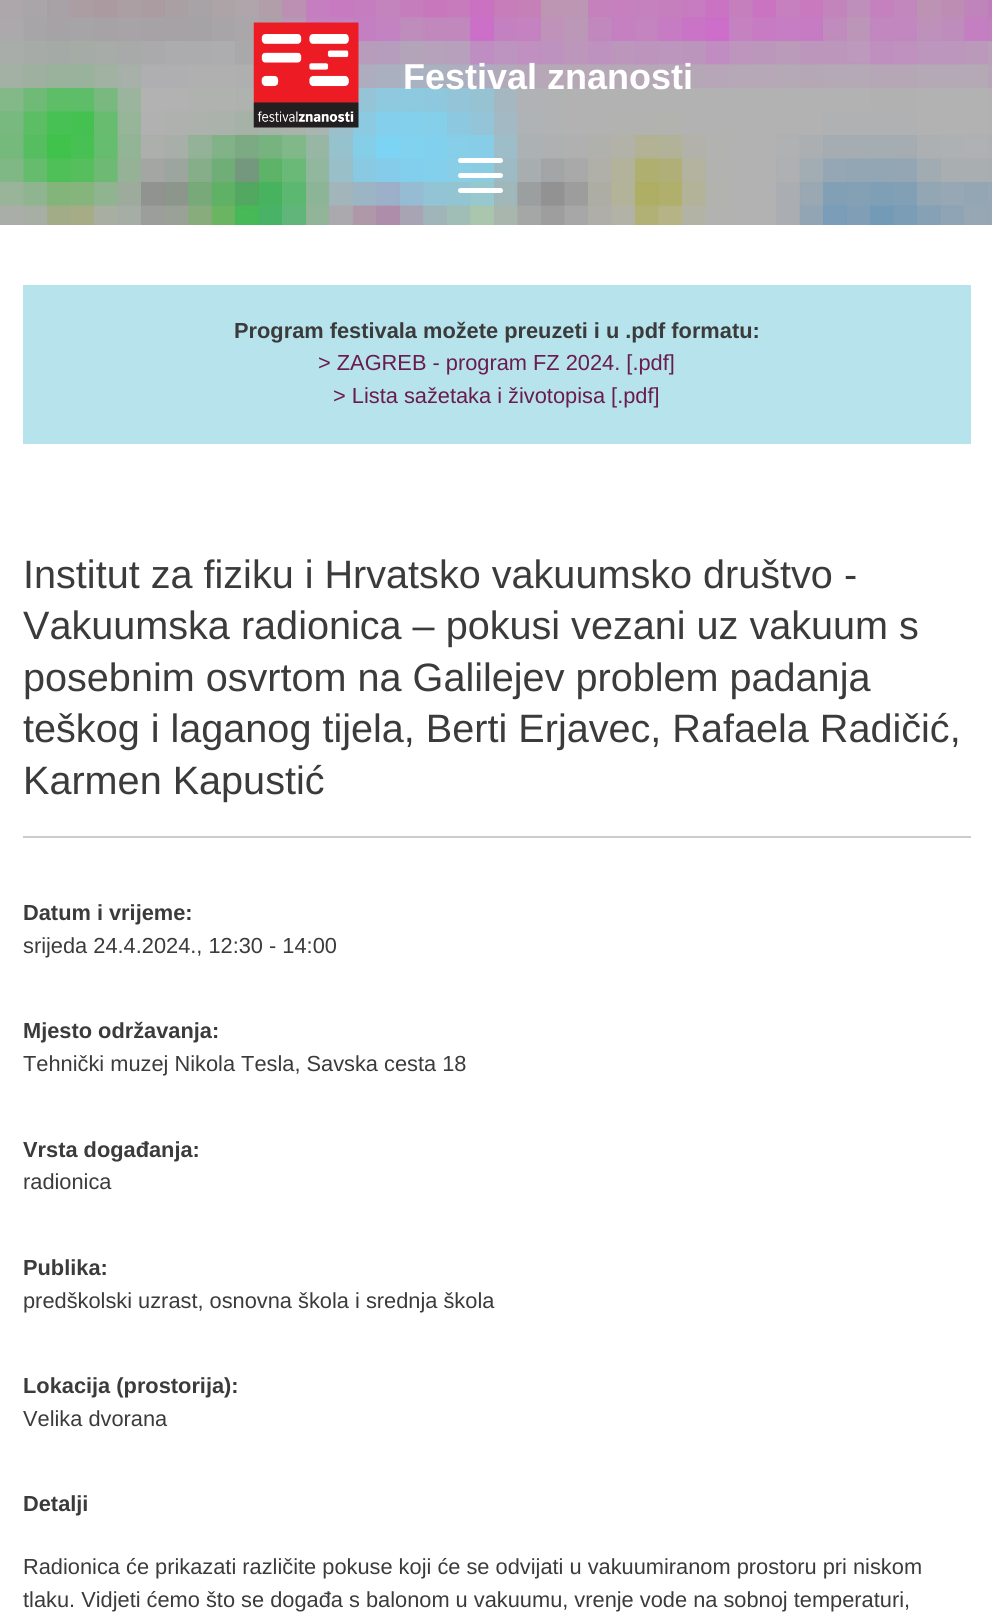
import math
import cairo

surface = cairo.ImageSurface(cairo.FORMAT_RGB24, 992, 1622)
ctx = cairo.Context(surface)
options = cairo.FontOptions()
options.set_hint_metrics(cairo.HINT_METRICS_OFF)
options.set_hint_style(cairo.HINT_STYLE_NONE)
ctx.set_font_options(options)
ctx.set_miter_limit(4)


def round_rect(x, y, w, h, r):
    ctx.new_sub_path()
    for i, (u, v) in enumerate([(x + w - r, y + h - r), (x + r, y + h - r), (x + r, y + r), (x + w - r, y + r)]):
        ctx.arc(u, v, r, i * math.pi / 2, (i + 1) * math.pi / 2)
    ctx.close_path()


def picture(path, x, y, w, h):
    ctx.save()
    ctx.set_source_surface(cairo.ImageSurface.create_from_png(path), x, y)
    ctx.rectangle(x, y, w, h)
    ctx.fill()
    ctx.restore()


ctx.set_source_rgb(1, 1, 1)
ctx.paint()
picture("img1.png", 0, 0, 992, 225)
picture("img2.png", 253, 22, 106, 106)
ctx.select_font_face("Liberation Sans", cairo.FONT_SLANT_NORMAL, cairo.FONT_WEIGHT_BOLD)
ctx.set_font_size(36)
ctx.set_source_rgb(1, 1, 1)
ctx.move_to(403, 89)
ctx.show_text("Festival znanosti")
round_rect(458, 158, 45, 5, 2.5)
ctx.fill()
round_rect(458, 173, 45, 5, 2.5)
ctx.fill()
round_rect(458, 188, 45, 5, 2.5)
ctx.fill()
ctx.set_source_rgb(0.718, 0.89, 0.925)
ctx.rectangle(23, 285, 948, 159)
ctx.fill()
ctx.set_font_size(21.8)
ctx.set_source_rgb(0.231, 0.231, 0.231)
ctx.move_to(234, 338)
ctx.show_text("Program festivala možete preuzeti i u .pdf formatu:")
ctx.select_font_face("Liberation Sans")
ctx.set_source_rgb(0.412, 0.11, 0.31)
ctx.move_to(318, 370)
ctx.show_text("> ZAGREB - program FZ 2024. [.pdf]")
ctx.move_to(333, 403)
ctx.show_text("> Lista sažetaka i životopisa [.pdf]")
ctx.set_source_rgb(0.8, 0.8, 0.8)
ctx.rectangle(23, 836, 948, 2)
ctx.fill()
ctx.set_font_size(39.6)
ctx.set_source_rgb(0.231, 0.231, 0.231)
ctx.move_to(23, 588)
ctx.show_text("Institut za fiziku i Hrvatsko vakuumsko društvo -")
ctx.move_to(23, 639)
ctx.show_text("Vakuumska radionica – pokusi vezani uz vakuum s")
ctx.move_to(23, 691)
ctx.show_text("posebnim osvrtom na Galilejev problem padanja")
ctx.move_to(23, 742)
ctx.show_text("teškog i laganog tijela, Berti Erjavec, Rafaela Radičić,")
ctx.move_to(23, 794)
ctx.show_text("Karmen Kapustić")
ctx.select_font_face("Liberation Sans", cairo.FONT_SLANT_NORMAL, cairo.FONT_WEIGHT_BOLD)
ctx.set_font_size(21.8)
ctx.move_to(23, 920)
ctx.show_text("Datum i vrijeme:")
ctx.select_font_face("Liberation Sans")
ctx.move_to(23, 953)
ctx.show_text("srijeda 24.4.2024., 12:30 - 14:00")
ctx.select_font_face("Liberation Sans", cairo.FONT_SLANT_NORMAL, cairo.FONT_WEIGHT_BOLD)
ctx.move_to(23, 1038)
ctx.show_text("Mjesto održavanja:")
ctx.select_font_face("Liberation Sans")
ctx.move_to(23, 1071)
ctx.show_text("Tehnički muzej Nikola Tesla, Savska cesta 18")
ctx.select_font_face("Liberation Sans", cairo.FONT_SLANT_NORMAL, cairo.FONT_WEIGHT_BOLD)
ctx.move_to(23, 1157)
ctx.show_text("Vrsta događanja:")
ctx.select_font_face("Liberation Sans")
ctx.move_to(23, 1189)
ctx.show_text("radionica")
ctx.select_font_face("Liberation Sans", cairo.FONT_SLANT_NORMAL, cairo.FONT_WEIGHT_BOLD)
ctx.move_to(23, 1275)
ctx.show_text("Publika:")
ctx.select_font_face("Liberation Sans")
ctx.move_to(23, 1308)
ctx.show_text("predškolski uzrast, osnovna škola i srednja škola")
ctx.select_font_face("Liberation Sans", cairo.FONT_SLANT_NORMAL, cairo.FONT_WEIGHT_BOLD)
ctx.move_to(23, 1393)
ctx.show_text("Lokacija (prostorija):")
ctx.select_font_face("Liberation Sans")
ctx.move_to(23, 1426)
ctx.show_text("Velika dvorana")
ctx.select_font_face("Liberation Sans", cairo.FONT_SLANT_NORMAL, cairo.FONT_WEIGHT_BOLD)
ctx.move_to(23, 1511)
ctx.show_text("Detalji")
ctx.select_font_face("Liberation Sans")
ctx.move_to(23, 1574)
ctx.show_text("Radionica će prikazati različite pokuse koji će se odvijati u vakuumiranom prostoru pri niskom")
ctx.move_to(23, 1607)
ctx.show_text("tlaku. Vidjeti ćemo što se događa s balonom u vakuumu, vrenje vode na sobnoj temperaturi,")
surface.write_to_png("page.png")
